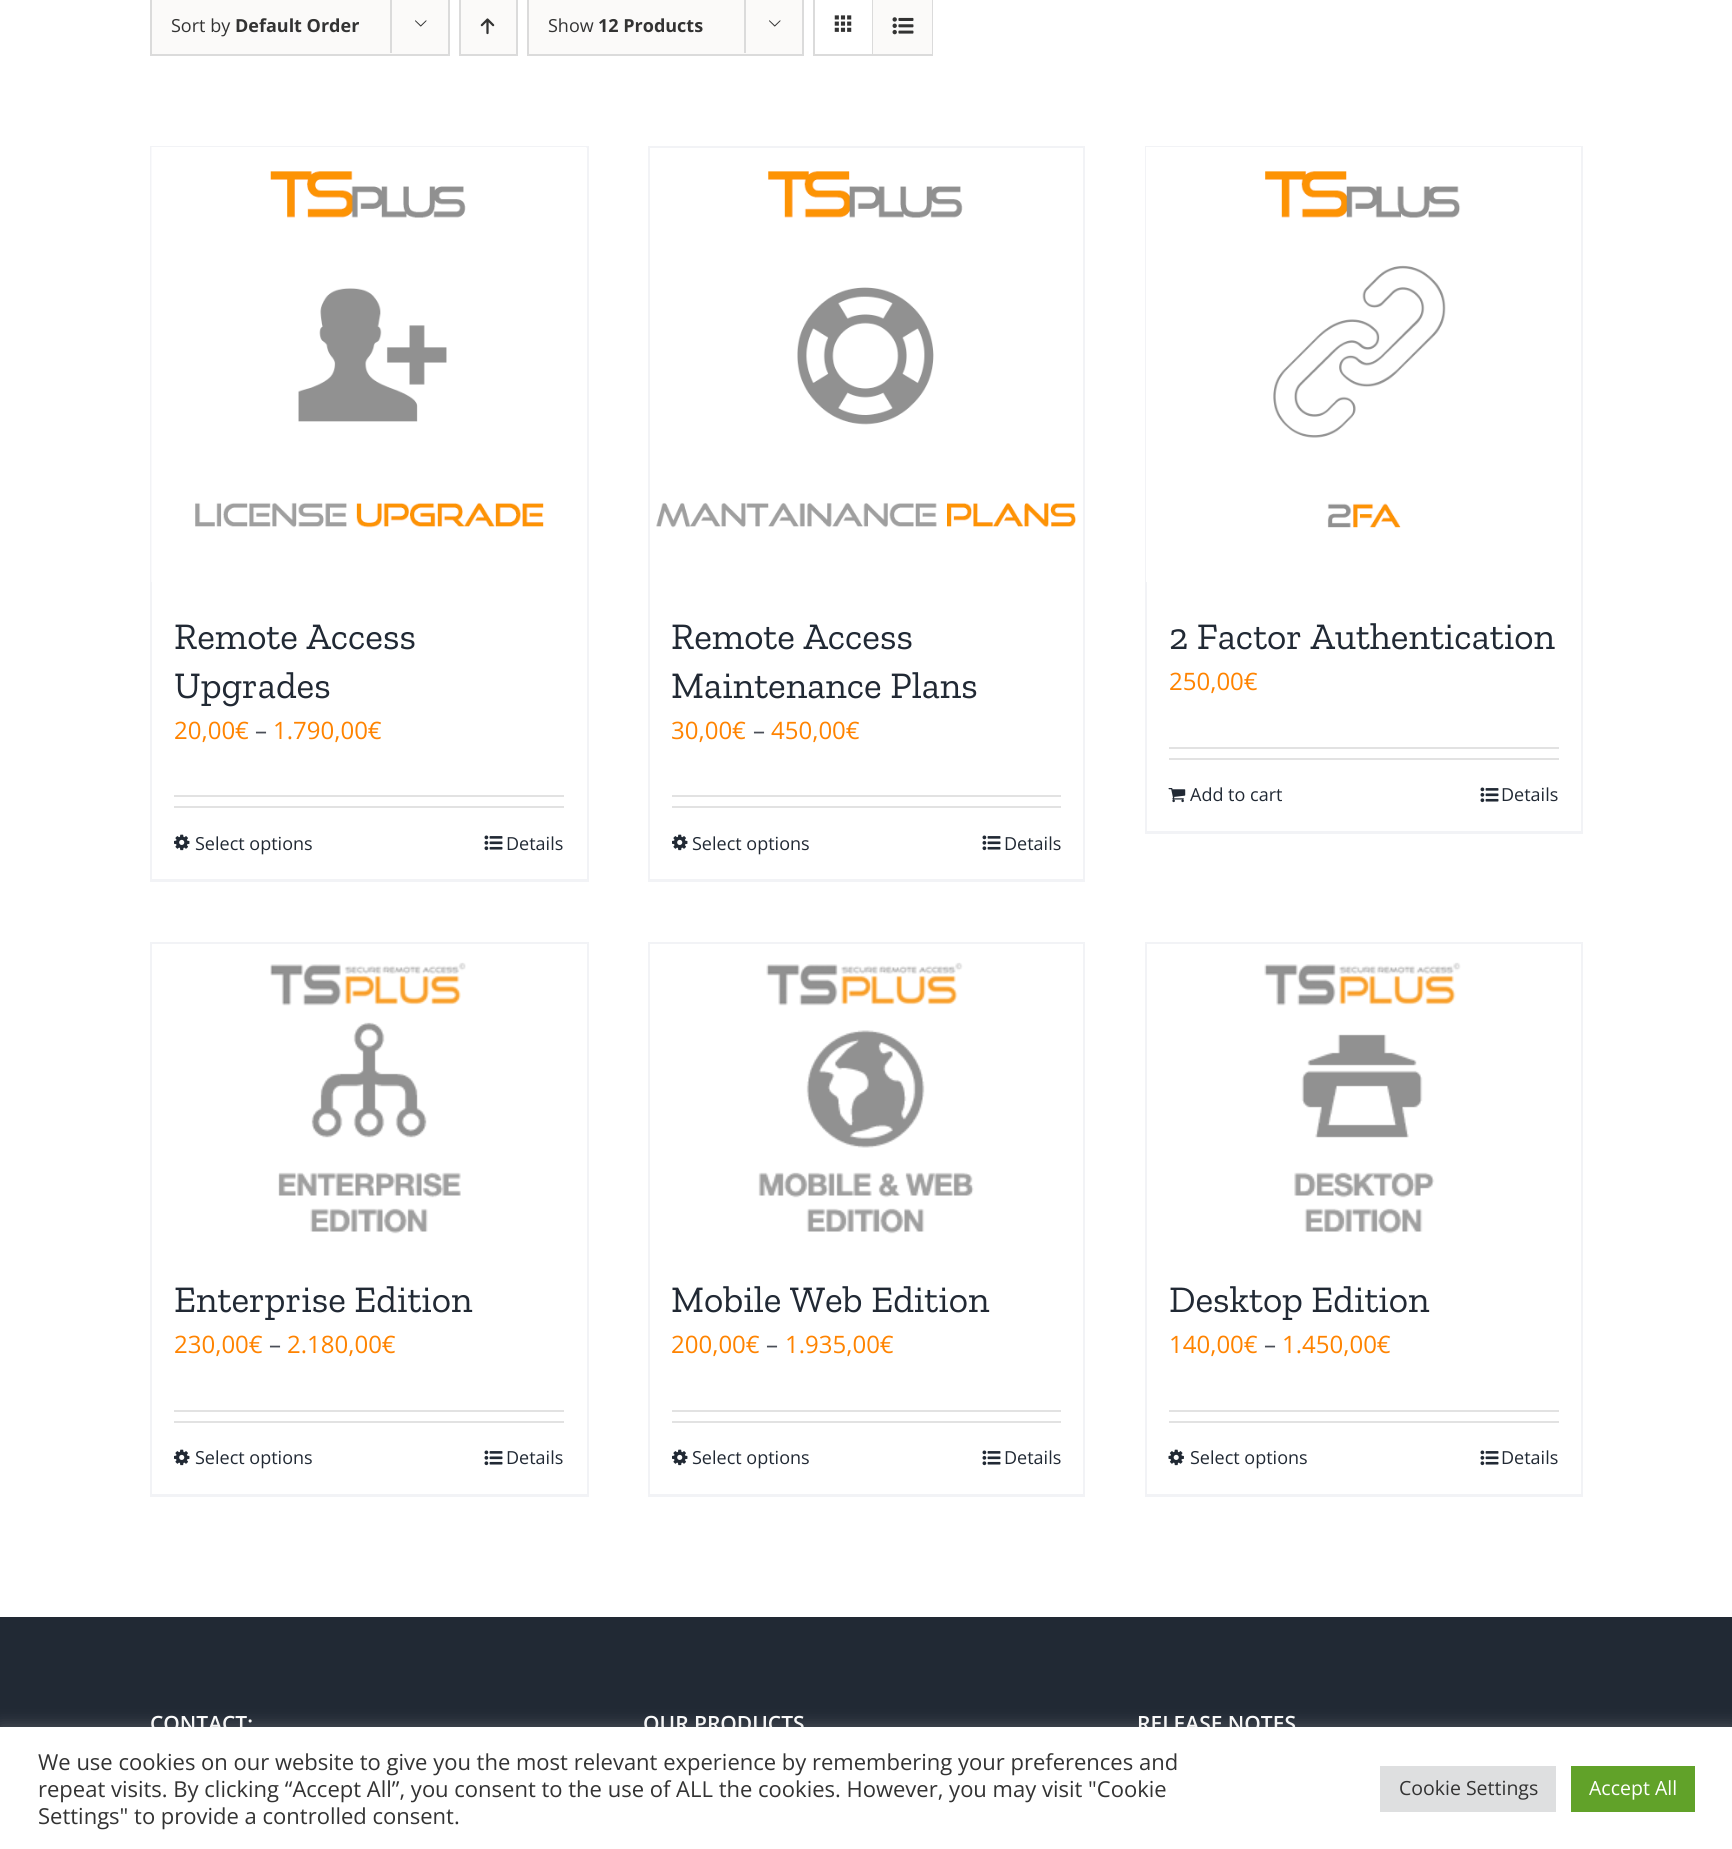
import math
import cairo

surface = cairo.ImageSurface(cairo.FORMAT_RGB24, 1732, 1849)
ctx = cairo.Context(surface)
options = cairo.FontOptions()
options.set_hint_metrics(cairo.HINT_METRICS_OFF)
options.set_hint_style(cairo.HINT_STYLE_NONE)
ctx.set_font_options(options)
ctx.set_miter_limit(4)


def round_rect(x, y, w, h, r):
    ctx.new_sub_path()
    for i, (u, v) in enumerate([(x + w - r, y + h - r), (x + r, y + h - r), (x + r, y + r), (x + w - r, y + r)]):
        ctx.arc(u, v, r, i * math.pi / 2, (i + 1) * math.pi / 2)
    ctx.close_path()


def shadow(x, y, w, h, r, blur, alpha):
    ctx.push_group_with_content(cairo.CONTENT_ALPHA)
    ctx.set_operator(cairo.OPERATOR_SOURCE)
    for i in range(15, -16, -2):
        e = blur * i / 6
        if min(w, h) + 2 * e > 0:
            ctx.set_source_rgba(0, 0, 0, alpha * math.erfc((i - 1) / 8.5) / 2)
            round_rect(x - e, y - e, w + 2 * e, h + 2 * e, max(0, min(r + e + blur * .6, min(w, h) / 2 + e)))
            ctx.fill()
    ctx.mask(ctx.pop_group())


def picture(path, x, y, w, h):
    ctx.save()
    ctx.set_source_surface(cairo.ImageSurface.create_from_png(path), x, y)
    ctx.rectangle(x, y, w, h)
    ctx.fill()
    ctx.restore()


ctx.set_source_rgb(1, 1, 1)
ctx.paint()
ctx.set_source_rgb(0.984, 0.98, 0.976)
ctx.rectangle(151, -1, 298, 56)
ctx.fill_preserve()
ctx.set_source_rgb(0.859, 0.859, 0.859)
ctx.stroke()
ctx.select_font_face("Open Sans")
ctx.set_font_size(18)
ctx.set_source_rgb(0.2, 0.2, 0.2)
ctx.move_to(171, 32)
ctx.show_text("Sort by")
ctx.select_font_face("Open Sans", cairo.FONT_SLANT_NORMAL, cairo.FONT_WEIGHT_BOLD)
ctx.move_to(235, 32)
ctx.show_text("Default Order")
ctx.set_source_rgb(0.859, 0.859, 0.859)
ctx.rectangle(390, 0, 2, 53)
ctx.fill()
picture("img1.png", 415, 20, 12, 7)
ctx.set_source_rgb(0.984, 0.98, 0.976)
ctx.rectangle(460, -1, 57, 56)
ctx.fill_preserve()
ctx.set_source_rgb(0.859, 0.859, 0.859)
ctx.stroke()
picture("img2.png", 480, 18, 15, 17)
ctx.set_source_rgb(0.984, 0.98, 0.976)
ctx.rectangle(528, -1, 275, 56)
ctx.fill_preserve()
ctx.set_source_rgb(0.859, 0.859, 0.859)
ctx.stroke()
ctx.select_font_face("Open Sans")
ctx.set_source_rgb(0.2, 0.2, 0.2)
ctx.move_to(548, 32)
ctx.show_text("Show")
ctx.select_font_face("Open Sans", cairo.FONT_SLANT_NORMAL, cairo.FONT_WEIGHT_BOLD)
ctx.move_to(598, 32)
ctx.show_text("12 Products")
ctx.set_source_rgb(0.859, 0.859, 0.859)
ctx.rectangle(744, 0, 2, 53)
ctx.fill()
picture("img1.png", 769, 20, 12, 7)
ctx.rectangle(814, -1, 118, 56)
ctx.stroke()
ctx.rectangle(872, 0, 1, 54)
ctx.fill()
picture("img3.png", 834, 15, 18, 17)
ctx.set_source_rgb(0.984, 0.98, 0.976)
ctx.rectangle(873, 0, 59, 54)
ctx.fill()
picture("img4.png", 892, 17, 22, 18)
ctx.set_source_rgb(0.949, 0.953, 0.961)
ctx.rectangle(150, 146, 438, 2)
ctx.fill()
ctx.rectangle(587, 146, 2, 736)
ctx.fill()
ctx.rectangle(150, 879, 438, 3)
ctx.fill()
ctx.rectangle(150, 146, 2, 736)
ctx.fill()
picture("img5.png", 151, 147, 436, 435)
ctx.select_font_face("Zilla Slab")
ctx.set_font_size(37.5)
ctx.set_source_rgb(0.129, 0.161, 0.204)
ctx.move_to(174, 649)
ctx.show_text("Remote Access")
ctx.move_to(174, 698)
ctx.show_text("Upgrades")
ctx.select_font_face("Open Sans")
ctx.set_font_size(24)
ctx.set_source_rgb(1, 0.514, 0)
ctx.move_to(174, 739)
ctx.show_text("20,00€")
ctx.set_source_rgb(0.29, 0.306, 0.341)
ctx.move_to(255, 739)
ctx.show_text("–")
ctx.set_source_rgb(1, 0.514, 0)
ctx.move_to(273, 739)
ctx.show_text("1.790,00€")
ctx.set_source_rgb(0.886, 0.886, 0.886)
ctx.rectangle(174, 795, 390, 2)
ctx.fill()
ctx.rectangle(174, 806, 390, 2)
ctx.fill()
picture("img6.png", 174, 834, 16, 17)
ctx.set_font_size(18)
ctx.set_source_rgb(0.129, 0.161, 0.204)
ctx.move_to(195, 850)
ctx.show_text("Select options")
picture("img7.png", 484, 835, 19, 16)
ctx.move_to(506, 850)
ctx.show_text("Details")
ctx.set_source_rgb(0.949, 0.953, 0.961)
ctx.rectangle(648, 146, 437, 2)
ctx.fill()
ctx.rectangle(1083, 146, 2, 736)
ctx.fill()
ctx.rectangle(648, 879, 437, 3)
ctx.fill()
ctx.rectangle(648, 146, 2, 736)
ctx.fill()
picture("img8.png", 656, 171, 420, 357)
ctx.select_font_face("Zilla Slab")
ctx.set_font_size(37.5)
ctx.set_source_rgb(0.129, 0.161, 0.204)
ctx.move_to(671, 649)
ctx.show_text("Remote Access")
ctx.move_to(671, 698)
ctx.show_text("Maintenance Plans")
ctx.select_font_face("Open Sans")
ctx.set_font_size(24)
ctx.set_source_rgb(1, 0.514, 0)
ctx.move_to(671, 739)
ctx.show_text("30,00€")
ctx.set_source_rgb(0.29, 0.306, 0.341)
ctx.move_to(753, 739)
ctx.show_text("–")
ctx.set_source_rgb(1, 0.514, 0)
ctx.move_to(771, 739)
ctx.show_text("450,00€")
ctx.set_source_rgb(0.886, 0.886, 0.886)
ctx.rectangle(672, 795, 389, 2)
ctx.fill()
ctx.rectangle(672, 806, 389, 2)
ctx.fill()
picture("img6.png", 672, 834, 16, 17)
ctx.set_font_size(18)
ctx.set_source_rgb(0.129, 0.161, 0.204)
ctx.move_to(692, 850)
ctx.show_text("Select options")
picture("img7.png", 982, 835, 19, 16)
ctx.move_to(1004, 850)
ctx.show_text("Details")
ctx.set_source_rgb(0.949, 0.953, 0.961)
ctx.rectangle(1145, 146, 438, 1)
ctx.fill()
ctx.rectangle(1581, 146, 2, 688)
ctx.fill()
ctx.rectangle(1145, 831, 438, 3)
ctx.fill()
ctx.rectangle(1145, 146, 2, 688)
ctx.fill()
picture("img9.png", 1146, 147, 435, 435)
ctx.select_font_face("Zilla Slab")
ctx.set_font_size(37.5)
ctx.set_source_rgb(0.129, 0.161, 0.204)
ctx.move_to(1169, 649)
ctx.show_text("2 Factor Authentication")
ctx.select_font_face("Open Sans")
ctx.set_font_size(24)
ctx.set_source_rgb(1, 0.514, 0)
ctx.move_to(1169, 690)
ctx.show_text("250,00€")
ctx.set_source_rgb(0.886, 0.886, 0.886)
ctx.rectangle(1169, 747, 390, 2)
ctx.fill()
ctx.rectangle(1169, 758, 390, 2)
ctx.fill()
picture("img10.png", 1168, 788, 18, 15)
ctx.set_font_size(18)
ctx.set_source_rgb(0.129, 0.161, 0.204)
ctx.move_to(1190, 801)
ctx.show_text("Add to cart")
picture("img7.png", 1480, 787, 19, 16)
ctx.move_to(1501, 801)
ctx.show_text("Details")
ctx.set_source_rgb(0.949, 0.953, 0.961)
ctx.rectangle(150, 942, 438, 2)
ctx.fill()
ctx.rectangle(587, 942, 2, 555)
ctx.fill()
ctx.rectangle(150, 1494, 438, 3)
ctx.fill()
ctx.rectangle(150, 942, 2, 555)
ctx.fill()
picture("img11.png", 270, 962, 196, 272)
ctx.select_font_face("Zilla Slab")
ctx.set_font_size(37.5)
ctx.set_source_rgb(0.129, 0.161, 0.204)
ctx.move_to(174, 1312)
ctx.show_text("Enterprise Edition")
ctx.select_font_face("Open Sans")
ctx.set_font_size(24)
ctx.set_source_rgb(1, 0.514, 0)
ctx.move_to(174, 1353)
ctx.show_text("230,00€")
ctx.set_source_rgb(0.29, 0.306, 0.341)
ctx.move_to(269, 1353)
ctx.show_text("–")
ctx.set_source_rgb(1, 0.514, 0)
ctx.move_to(287, 1353)
ctx.show_text("2.180,00€")
ctx.set_source_rgb(0.886, 0.886, 0.886)
ctx.rectangle(174, 1410, 390, 2)
ctx.fill()
ctx.rectangle(174, 1421, 390, 2)
ctx.fill()
picture("img6.png", 174, 1449, 16, 17)
ctx.set_font_size(18)
ctx.set_source_rgb(0.129, 0.161, 0.204)
ctx.move_to(195, 1464)
ctx.show_text("Select options")
picture("img7.png", 484, 1450, 19, 16)
ctx.move_to(506, 1464)
ctx.show_text("Details")
ctx.set_source_rgb(0.949, 0.953, 0.961)
ctx.rectangle(648, 942, 437, 2)
ctx.fill()
ctx.rectangle(1083, 942, 2, 555)
ctx.fill()
ctx.rectangle(648, 1494, 437, 3)
ctx.fill()
ctx.rectangle(648, 942, 2, 555)
ctx.fill()
picture("img12.png", 758, 962, 216, 272)
ctx.select_font_face("Zilla Slab")
ctx.set_font_size(37.5)
ctx.set_source_rgb(0.129, 0.161, 0.204)
ctx.move_to(671, 1312)
ctx.show_text("Mobile Web Edition")
ctx.select_font_face("Open Sans")
ctx.set_font_size(24)
ctx.set_source_rgb(1, 0.514, 0)
ctx.move_to(671, 1353)
ctx.show_text("200,00€")
ctx.set_source_rgb(0.29, 0.306, 0.341)
ctx.move_to(766, 1353)
ctx.show_text("–")
ctx.set_source_rgb(1, 0.514, 0)
ctx.move_to(785, 1353)
ctx.show_text("1.935,00€")
ctx.set_source_rgb(0.886, 0.886, 0.886)
ctx.rectangle(672, 1410, 389, 2)
ctx.fill()
ctx.rectangle(672, 1421, 389, 2)
ctx.fill()
picture("img6.png", 672, 1449, 16, 17)
ctx.set_font_size(18)
ctx.set_source_rgb(0.129, 0.161, 0.204)
ctx.move_to(692, 1464)
ctx.show_text("Select options")
picture("img7.png", 982, 1450, 19, 16)
ctx.move_to(1004, 1464)
ctx.show_text("Details")
ctx.set_source_rgb(0.949, 0.953, 0.961)
ctx.rectangle(1145, 942, 438, 2)
ctx.fill()
ctx.rectangle(1581, 942, 2, 555)
ctx.fill()
ctx.rectangle(1145, 1494, 438, 3)
ctx.fill()
ctx.rectangle(1145, 942, 2, 555)
ctx.fill()
picture("img13.png", 1264, 962, 197, 272)
ctx.select_font_face("Zilla Slab")
ctx.set_font_size(37.5)
ctx.set_source_rgb(0.129, 0.161, 0.204)
ctx.move_to(1169, 1312)
ctx.show_text("Desktop Edition")
ctx.select_font_face("Open Sans")
ctx.set_font_size(24)
ctx.set_source_rgb(1, 0.514, 0)
ctx.move_to(1169, 1353)
ctx.show_text("140,00€")
ctx.set_source_rgb(0.29, 0.306, 0.341)
ctx.move_to(1264, 1353)
ctx.show_text("–")
ctx.set_source_rgb(1, 0.514, 0)
ctx.move_to(1282, 1353)
ctx.show_text("1.450,00€")
ctx.set_source_rgb(0.886, 0.886, 0.886)
ctx.rectangle(1169, 1410, 390, 2)
ctx.fill()
ctx.rectangle(1169, 1421, 390, 2)
ctx.fill()
picture("img14.png", 1168, 1449, 16, 17)
ctx.set_font_size(18)
ctx.set_source_rgb(0.129, 0.161, 0.204)
ctx.move_to(1190, 1464)
ctx.show_text("Select options")
picture("img7.png", 1480, 1450, 19, 16)
ctx.move_to(1501, 1464)
ctx.show_text("Details")
ctx.rectangle(0, 1617, 1732, 110)
ctx.fill()
ctx.select_font_face("Open Sans SemiBold")
ctx.set_font_size(21)
ctx.set_source_rgb(1, 1, 1)
ctx.move_to(150, 1731)
ctx.show_text("CONTACT:")
ctx.move_to(643, 1731)
ctx.show_text("OUR PRODUCTS")
ctx.move_to(1137, 1731)
ctx.show_text("RELEASE NOTES")
ctx.set_source_rgb(0.675, 0.671, 0.671)
shadow(0, 1725, 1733, 123, 0, 7.5, 0.3)
ctx.set_source_rgb(1, 1, 1)
ctx.rectangle(0, 1727, 1732, 122)
ctx.fill()
ctx.select_font_face("Open Sans")
ctx.set_font_size(22)
ctx.set_source_rgb(0.2, 0.2, 0.2)
ctx.move_to(38, 1770)
ctx.show_text("We use cookies on our website to give you the most relevant experience by remembering your preferences and")
ctx.move_to(38, 1797)
ctx.show_text("repeat visits. By clicking “Accept All”, you consent to the use of ALL the cookies. However, you may visit \"Cookie")
ctx.move_to(38, 1824)
ctx.show_text("Settings\" to provide a controlled consent.")
ctx.set_source_rgb(0.871, 0.875, 0.878)
ctx.rectangle(1380, 1766, 176, 46)
ctx.fill()
ctx.set_font_size(19.5)
ctx.set_source_rgb(0.2, 0.2, 0.2)
ctx.move_to(1399, 1795)
ctx.show_text("Cookie Settings")
ctx.set_source_rgb(0.38, 0.635, 0.161)
ctx.rectangle(1571, 1766, 124, 46)
ctx.fill()
ctx.set_source_rgb(1, 1, 1)
ctx.move_to(1589, 1795)
ctx.show_text("Accept All")
surface.write_to_png("page.png")
